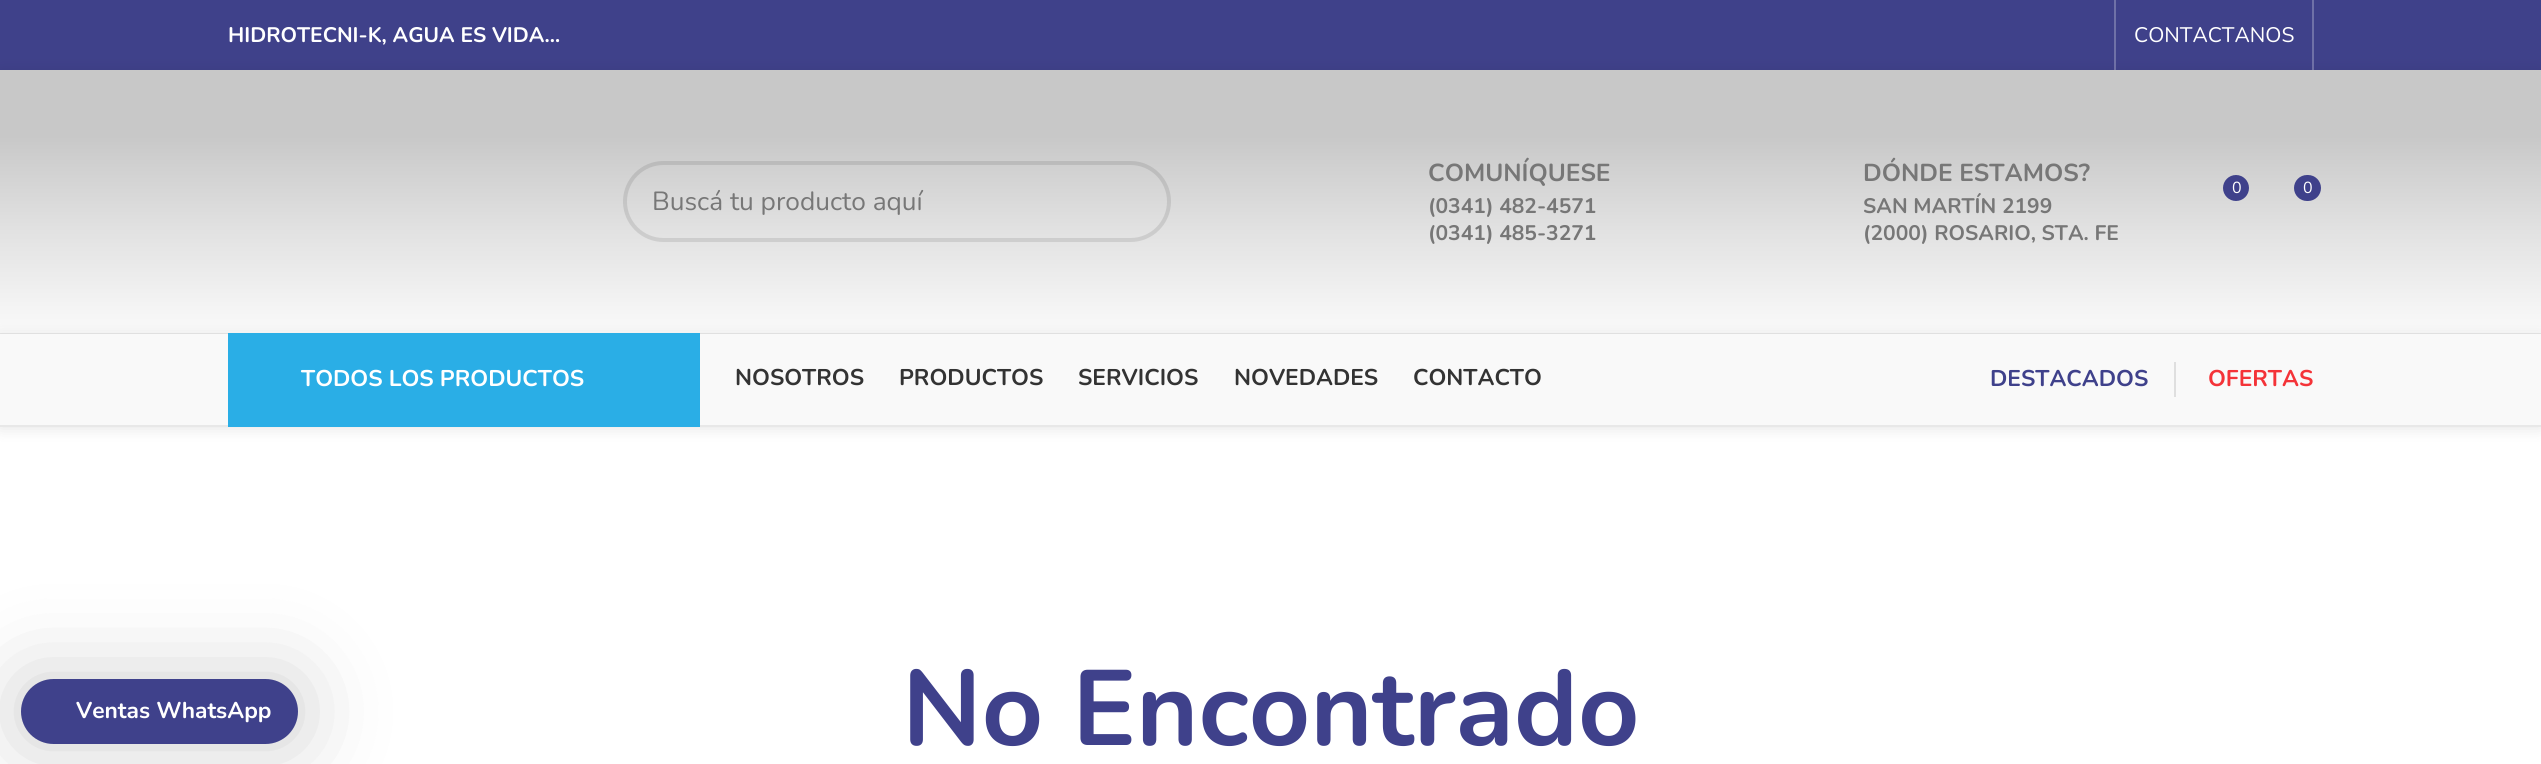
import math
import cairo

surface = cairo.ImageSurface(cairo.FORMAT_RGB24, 2541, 764)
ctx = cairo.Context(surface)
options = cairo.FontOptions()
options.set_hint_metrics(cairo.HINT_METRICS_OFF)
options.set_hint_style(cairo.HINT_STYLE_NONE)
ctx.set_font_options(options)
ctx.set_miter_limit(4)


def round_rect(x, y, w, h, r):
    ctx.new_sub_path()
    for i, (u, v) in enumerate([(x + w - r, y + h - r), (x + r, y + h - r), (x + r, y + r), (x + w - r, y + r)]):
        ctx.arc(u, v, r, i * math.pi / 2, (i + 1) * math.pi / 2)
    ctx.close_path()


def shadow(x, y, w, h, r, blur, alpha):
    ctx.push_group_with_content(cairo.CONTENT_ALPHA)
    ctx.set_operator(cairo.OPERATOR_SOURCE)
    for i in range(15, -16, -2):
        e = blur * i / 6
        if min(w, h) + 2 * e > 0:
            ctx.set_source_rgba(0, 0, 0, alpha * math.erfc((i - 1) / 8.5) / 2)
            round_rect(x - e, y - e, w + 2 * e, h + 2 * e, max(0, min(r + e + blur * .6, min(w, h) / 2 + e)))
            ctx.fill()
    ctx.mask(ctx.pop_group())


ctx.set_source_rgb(1, 1, 1)
ctx.paint()
ctx.set_source_rgb(0, 0, 0)
shadow(21, 679, 277, 65, 32.5, 44, 0.2)
ctx.set_source_rgb(0.247, 0.255, 0.545)
round_rect(21, 679, 277, 65, 32.5)
ctx.fill()
ctx.select_font_face("Nunito", cairo.FONT_SLANT_NORMAL, cairo.FONT_WEIGHT_BOLD)
ctx.set_font_size(22.75)
ctx.set_source_rgb(1, 1, 1)
ctx.move_to(76, 718)
ctx.show_text("Ventas WhatsApp")
ctx.set_source_rgb(0.247, 0.255, 0.541)
ctx.rectangle(0, 0, 2541, 70)
ctx.fill()
ctx.set_font_size(21)
ctx.set_source_rgb(1, 1, 1)
ctx.move_to(228, 42)
ctx.show_text("HIDROTECNI-K, AGUA ES VIDA…")
ctx.set_source_rgb(0, 0, 0)
shadow(0, 72, 2541, 264, 0, 7, 0.1)
ctx.set_source_rgba(1, 1, 1, 0.25)
ctx.rectangle(2114, 0, 2, 70)
ctx.fill()
ctx.select_font_face("Nunito")
ctx.set_source_rgb(1, 1, 1)
ctx.move_to(2134, 42)
ctx.show_text("CONTACTANOS")
ctx.set_source_rgba(1, 1, 1, 0.25)
ctx.rectangle(2312, 0, 2, 70)
ctx.fill()
gradient = cairo.LinearGradient(1271, 70, 1271, 333)
gradient.add_color_stop_rgba(0.25, 0.784, 0.784, 0.784, 1)
gradient.add_color_stop_rgba(0.6, 0.882, 0.882, 0.882, 1)
gradient.add_color_stop_rgba(1, 0.98, 0.98, 0.98, 1)
ctx.set_source(gradient)
ctx.rectangle(0, 70, 2541, 263)
ctx.fill()
ctx.set_source_rgb(0.91, 0.91, 0.91)
ctx.rectangle(0, 333, 2541, 1)
ctx.fill()
round_rect(625, 163, 544, 77, 38.5)
ctx.set_source_rgba(0, 0, 0, 0.1)
ctx.set_line_width(4)
ctx.stroke()
ctx.set_font_size(26.25)
ctx.set_source_rgb(0.467, 0.467, 0.467)
ctx.move_to(652, 210)
ctx.show_text("Buscá tu producto aquí")
ctx.select_font_face("Nunito", cairo.FONT_SLANT_NORMAL, cairo.FONT_WEIGHT_BOLD)
ctx.set_font_size(24.5)
ctx.move_to(1428, 181)
ctx.show_text("COMUNÍQUESE")
ctx.set_font_size(21)
ctx.move_to(1428, 213)
ctx.show_text("(0341) 482-4571")
ctx.move_to(1428, 240)
ctx.show_text("(0341) 485-3271")
ctx.set_font_size(24.5)
ctx.move_to(1863, 181)
ctx.show_text("DÓNDE ESTAMOS?")
ctx.set_font_size(21)
ctx.move_to(1863, 213)
ctx.show_text("SAN MARTÍN 2199")
ctx.move_to(1863, 240)
ctx.show_text("(2000) ROSARIO, STA. FE")
ctx.set_source_rgb(0.247, 0.255, 0.545)
ctx.new_path()
ctx.arc(2236, 188, 13, 0, 2 * math.pi)
ctx.fill()
ctx.select_font_face("Nunito")
ctx.set_font_size(16)
ctx.set_source_rgb(1, 1, 1)
ctx.move_to(2232, 193)
ctx.show_text("0")
ctx.set_source_rgb(0.247, 0.255, 0.545)
round_rect(2294, 175, 27, 26, 13)
ctx.fill()
ctx.set_source_rgb(1, 1, 1)
ctx.move_to(2303, 193)
ctx.show_text("0")
ctx.set_source_rgb(0, 0, 0)
shadow(0, 336, 2541, 93, 0, 7, 0.1)
ctx.set_source_rgb(0.976, 0.976, 0.976)
ctx.rectangle(0, 334, 2541, 91)
ctx.fill()
ctx.set_source_rgb(0.91, 0.91, 0.91)
ctx.rectangle(0, 425, 2541, 2)
ctx.fill()
ctx.set_source_rgb(0.165, 0.682, 0.902)
ctx.rectangle(228, 333, 472, 94)
ctx.fill()
ctx.select_font_face("Nunito", cairo.FONT_SLANT_NORMAL, cairo.FONT_WEIGHT_BOLD)
ctx.set_font_size(22.75)
ctx.set_source_rgb(1, 1, 1)
ctx.move_to(301, 386)
ctx.show_text("TODOS LOS PRODUCTOS")
ctx.set_source_rgb(0.2, 0.2, 0.2)
ctx.move_to(735, 385)
ctx.show_text("NOSOTROS")
ctx.move_to(899, 385)
ctx.show_text("PRODUCTOS")
ctx.move_to(1078, 385)
ctx.show_text("SERVICIOS")
ctx.move_to(1234, 385)
ctx.show_text("NOVEDADES")
ctx.move_to(1413, 385)
ctx.show_text("CONTACTO")
ctx.set_source_rgb(0.875, 0.875, 0.875)
ctx.rectangle(2174, 362, 2, 35)
ctx.fill()
ctx.set_source_rgb(0.247, 0.255, 0.545)
ctx.move_to(1990, 386)
ctx.show_text("DESTACADOS")
ctx.set_source_rgb(0.957, 0.2, 0.22)
ctx.move_to(2208, 386)
ctx.show_text("OFERTAS")
ctx.set_font_size(106.75)
ctx.set_source_rgb(0.247, 0.255, 0.545)
ctx.move_to(902, 745)
ctx.show_text("No Encontrado")
surface.write_to_png("page.png")
